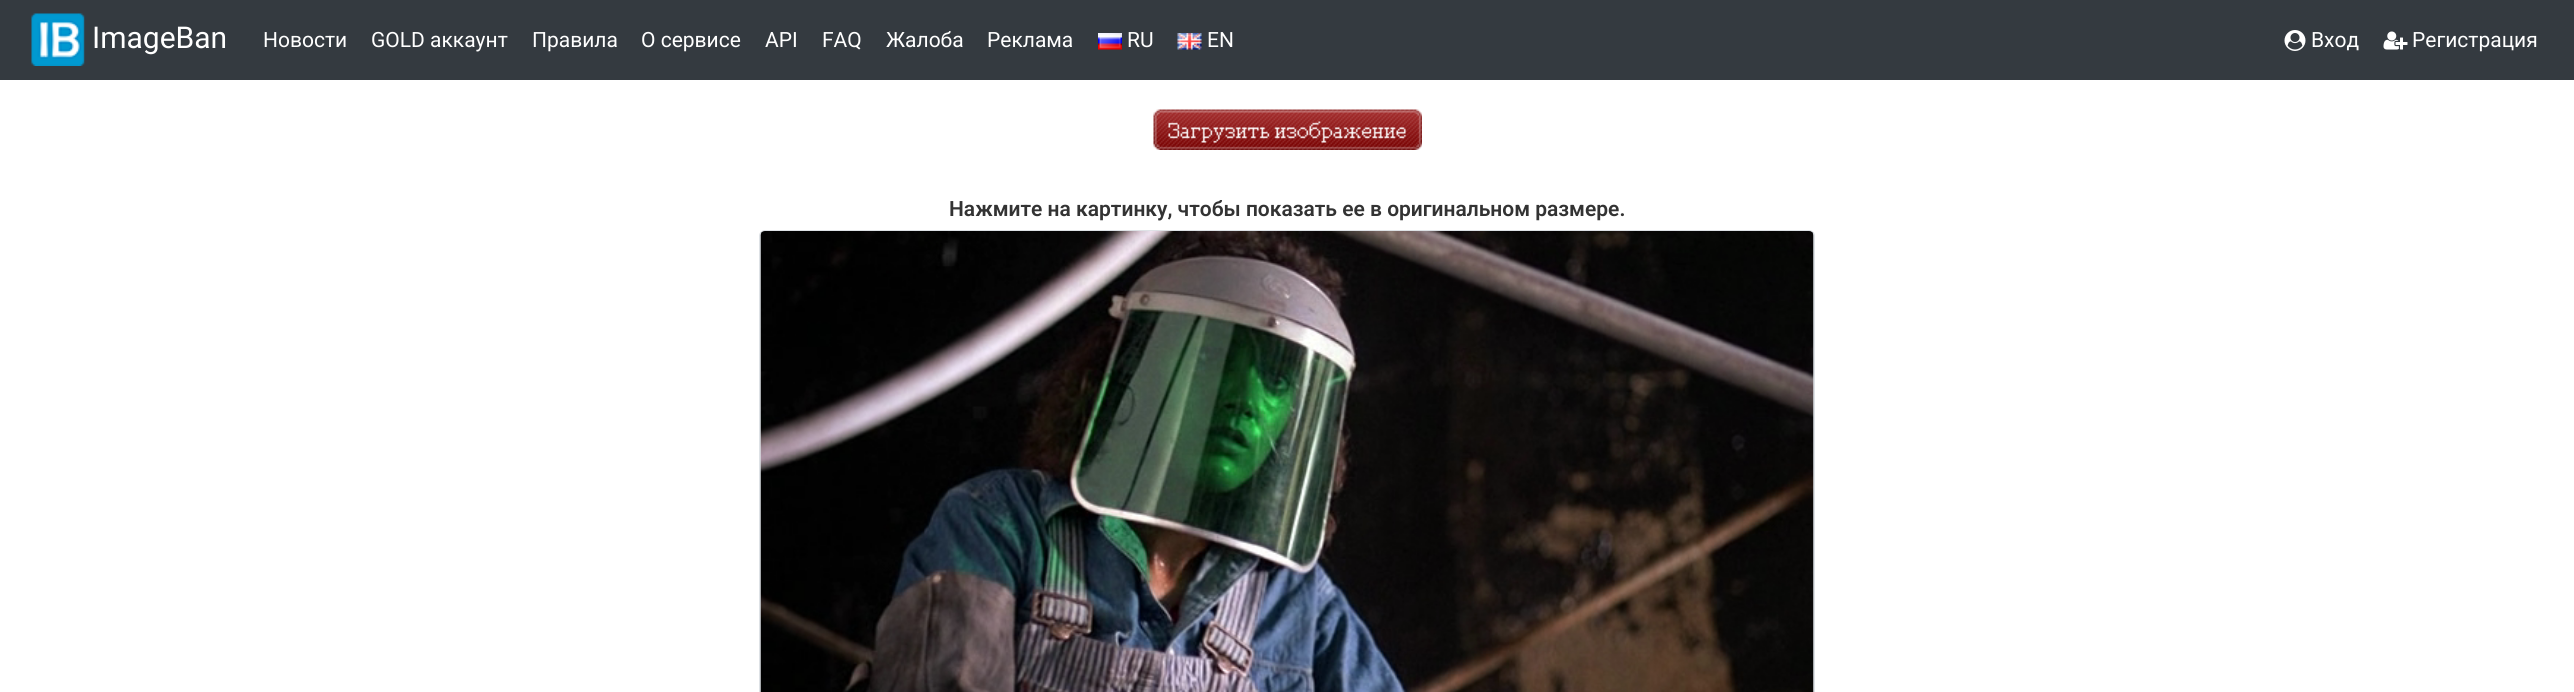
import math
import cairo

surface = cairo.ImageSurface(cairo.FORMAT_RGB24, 2574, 692)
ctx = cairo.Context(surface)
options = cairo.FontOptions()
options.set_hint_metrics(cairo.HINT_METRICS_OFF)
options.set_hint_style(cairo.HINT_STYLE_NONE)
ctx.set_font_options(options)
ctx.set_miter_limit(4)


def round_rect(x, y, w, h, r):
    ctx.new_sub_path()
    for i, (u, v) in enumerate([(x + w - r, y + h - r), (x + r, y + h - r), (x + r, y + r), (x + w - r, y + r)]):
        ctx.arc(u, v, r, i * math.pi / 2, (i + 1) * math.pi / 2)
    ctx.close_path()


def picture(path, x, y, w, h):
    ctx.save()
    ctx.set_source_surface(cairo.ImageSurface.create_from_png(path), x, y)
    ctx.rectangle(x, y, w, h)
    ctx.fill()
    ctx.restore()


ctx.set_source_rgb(1, 1, 1)
ctx.paint()
ctx.set_source_rgb(0.204, 0.227, 0.251)
ctx.rectangle(0, 0, 2574, 80)
ctx.fill()
picture("img1.png", 31, 13, 54, 53)
ctx.select_font_face("Roboto")
ctx.set_font_size(30)
ctx.set_source_rgb(1, 1, 1)
ctx.move_to(92, 48)
ctx.show_text("ImageBan")
ctx.set_font_size(21)
ctx.move_to(263, 47)
ctx.show_text("Новости")
ctx.move_to(371, 47)
ctx.show_text("GOLD аккаунт")
ctx.move_to(532, 47)
ctx.show_text("Правила")
ctx.move_to(641, 47)
ctx.show_text("О сервисе")
ctx.move_to(765, 47)
ctx.show_text("API")
ctx.move_to(822, 47)
ctx.show_text("FAQ")
ctx.move_to(886, 47)
ctx.show_text("Жалоба")
ctx.move_to(987, 47)
ctx.show_text("Реклама")
picture("img2.png", 1098, 33, 24, 17)
ctx.move_to(1127, 47)
ctx.show_text("RU")
picture("img3.png", 1177, 33, 25, 17)
ctx.move_to(1207, 47)
ctx.show_text("EN")
picture("img4.png", 2284, 30, 22, 21)
ctx.move_to(2311, 47)
ctx.show_text("Вход")
picture("img5.png", 2383, 31, 25, 19)
ctx.move_to(2412, 47)
ctx.show_text("Регистрация")
picture("img6.png", 1153, 109, 269, 41)
ctx.select_font_face("Roboto SemiBold")
ctx.set_source_rgb(0.2, 0.2, 0.2)
ctx.move_to(949, 216)
ctx.show_text("Нажмите на картинку, чтобы показать ее в оригинальном размере.")
round_rect(760, 231, 1054, 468, 5)
ctx.set_source_rgb(0.871, 0.886, 0.902)
ctx.stroke()
picture("img7.png", 760, 231, 1054, 461)
surface.write_to_png("page.png")
